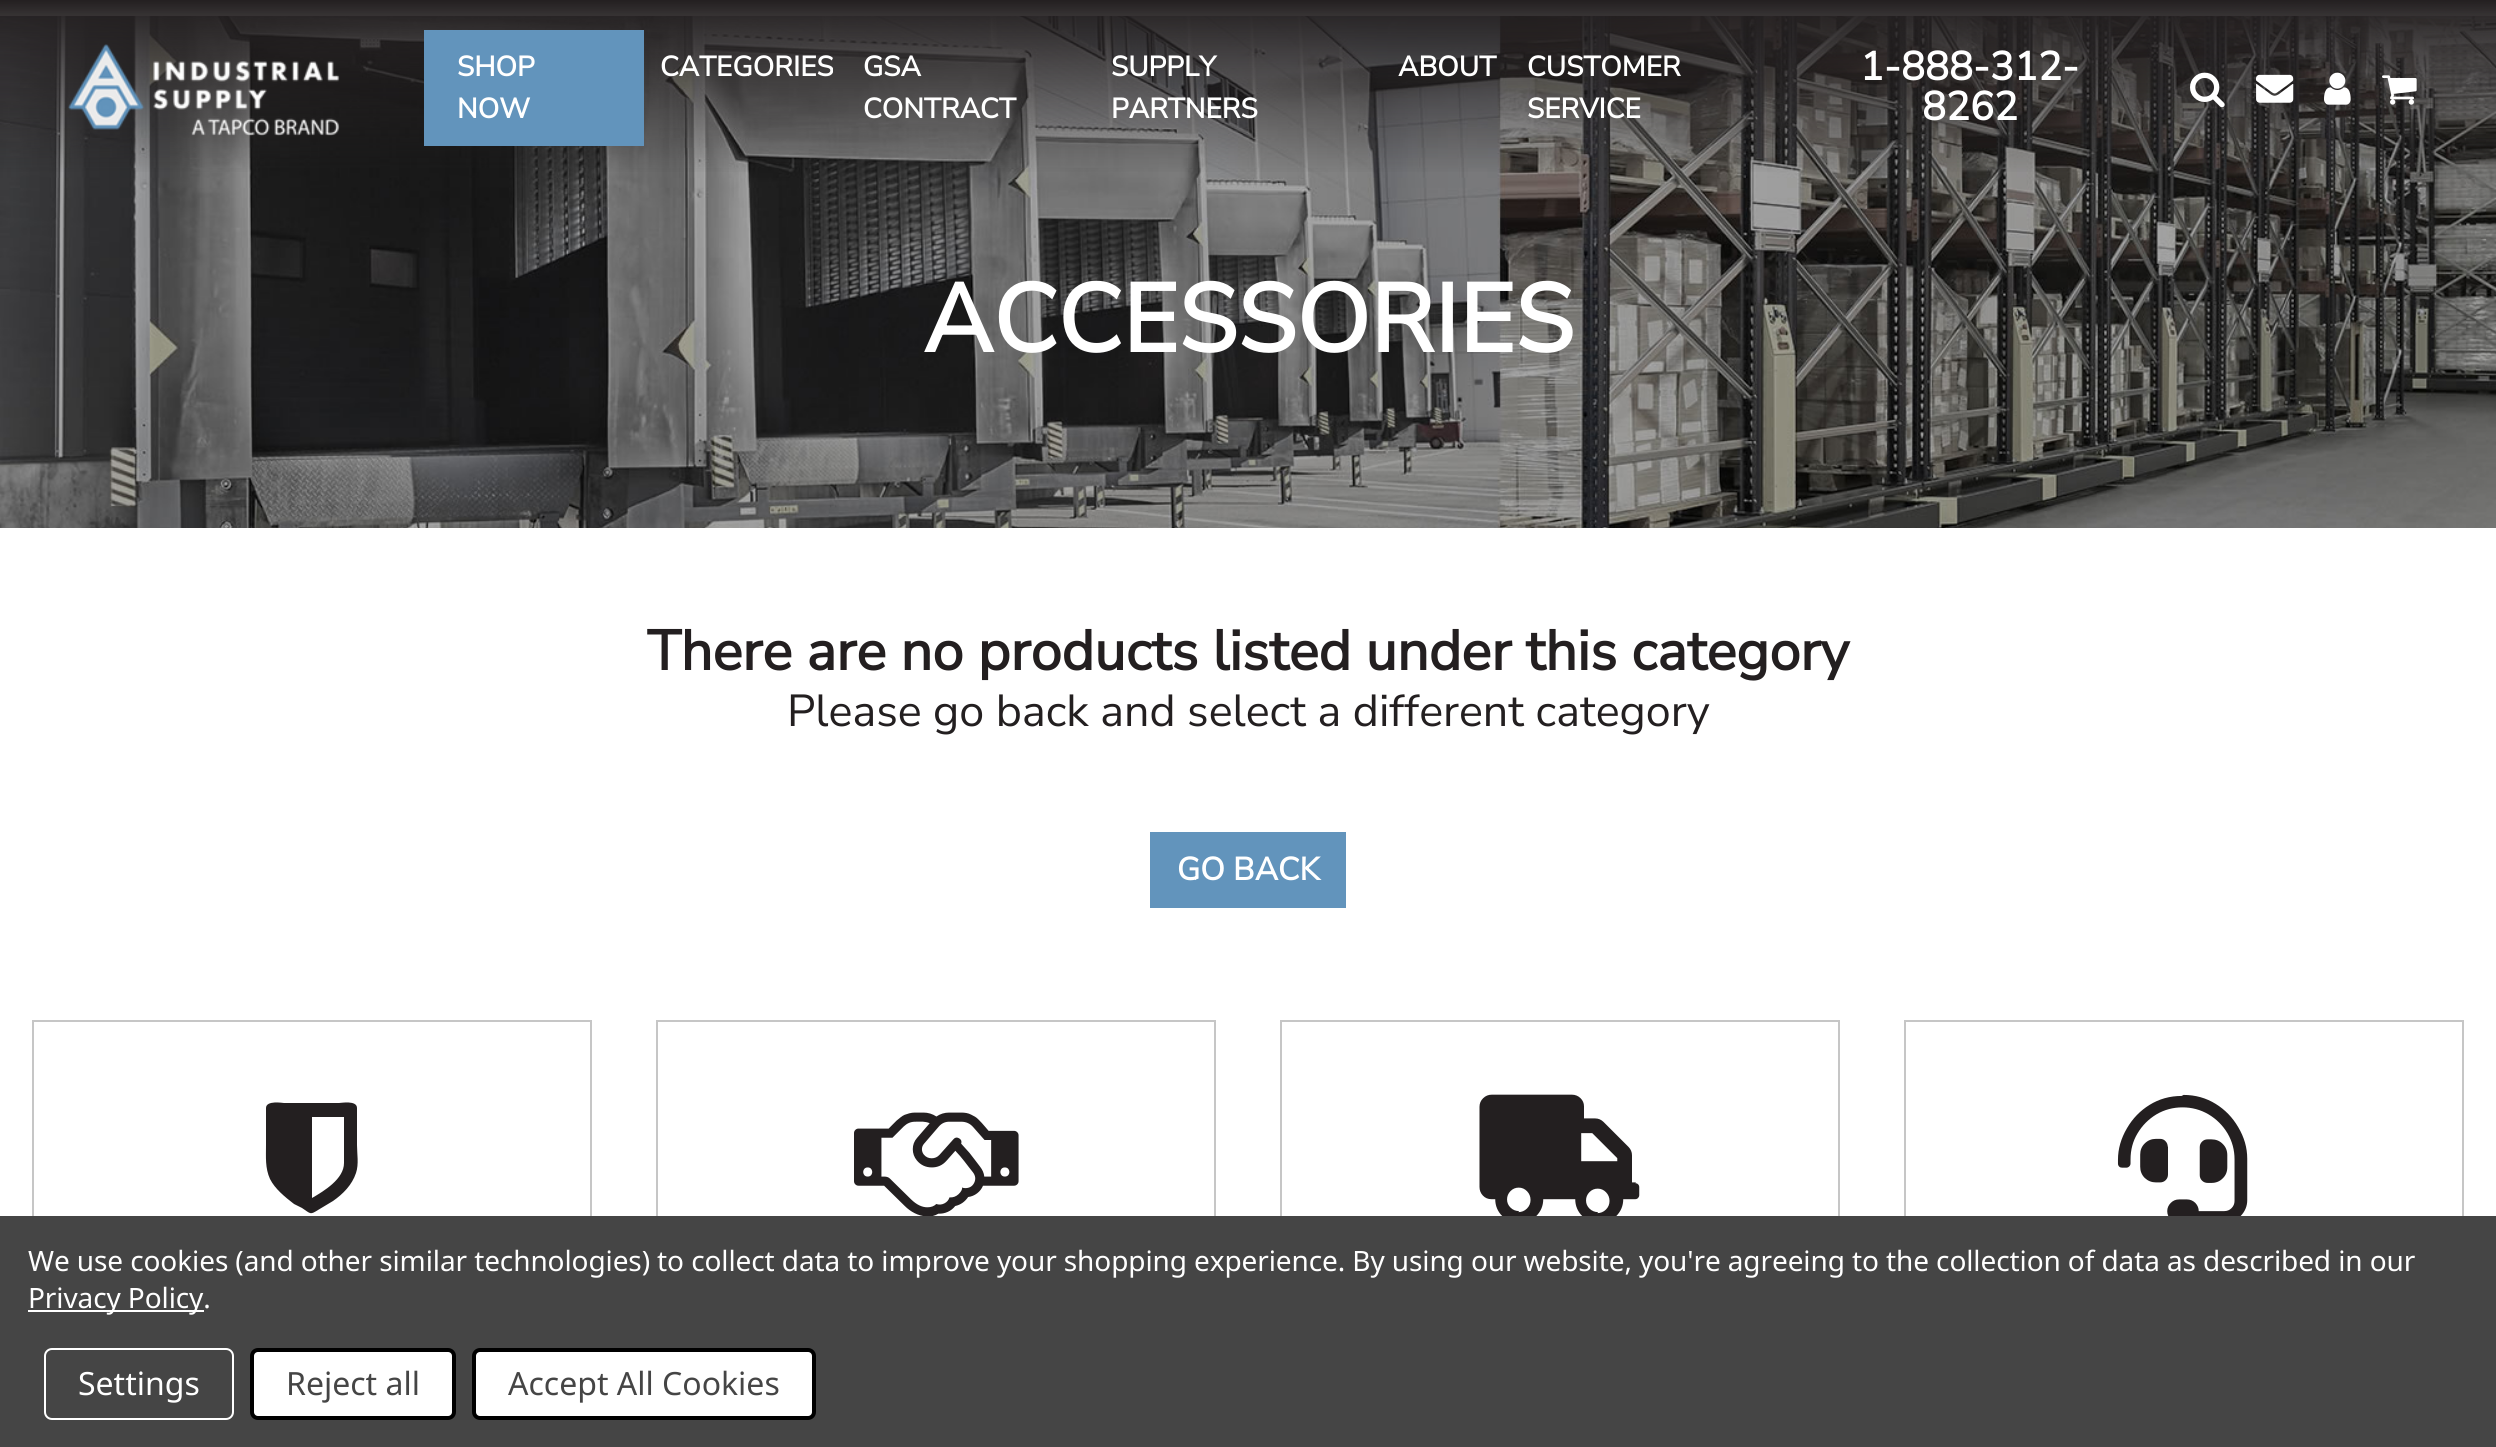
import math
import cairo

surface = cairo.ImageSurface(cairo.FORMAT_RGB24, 2496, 1447)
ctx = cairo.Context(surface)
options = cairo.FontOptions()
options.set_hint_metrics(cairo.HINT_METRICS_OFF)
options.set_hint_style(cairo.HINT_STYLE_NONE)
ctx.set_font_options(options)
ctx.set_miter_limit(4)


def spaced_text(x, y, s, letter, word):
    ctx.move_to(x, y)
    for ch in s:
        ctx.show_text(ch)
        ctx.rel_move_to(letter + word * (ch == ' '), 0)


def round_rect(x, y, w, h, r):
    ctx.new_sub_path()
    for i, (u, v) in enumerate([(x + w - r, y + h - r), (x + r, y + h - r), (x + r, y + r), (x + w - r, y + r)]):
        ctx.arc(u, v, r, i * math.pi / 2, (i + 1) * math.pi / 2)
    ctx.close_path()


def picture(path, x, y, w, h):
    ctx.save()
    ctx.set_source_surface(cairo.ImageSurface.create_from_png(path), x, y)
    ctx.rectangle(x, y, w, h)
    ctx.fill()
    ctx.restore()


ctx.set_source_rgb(1, 1, 1)
ctx.paint()
picture("img6.png", 0, 16, 2496, 512)
gradient = cairo.LinearGradient(1248, 0, 1248, 176)
gradient.add_color_stop_rgba(0, 0.137, 0.122, 0.125, 1)
gradient.add_color_stop_rgba(1, 0.137, 0.122, 0.125, 0)
ctx.set_source(gradient)
ctx.rectangle(0, 0, 2496, 172)
ctx.fill()
picture("img1.png", 68, 44, 272, 92)
ctx.set_source_rgb(0.384, 0.58, 0.737)
ctx.rectangle(424, 30, 220, 116)
ctx.fill()
ctx.select_font_face("Nunito Sans", cairo.FONT_SLANT_NORMAL, cairo.FONT_WEIGHT_BOLD)
ctx.set_font_size(28)
ctx.set_source_rgb(1, 1, 1)
ctx.move_to(457, 76)
ctx.show_text("SHOP")
ctx.move_to(457, 118)
ctx.show_text("NOW")
ctx.move_to(660, 76)
ctx.show_text("CATEGORIES")
ctx.move_to(863, 76)
ctx.show_text("GSA")
ctx.move_to(863, 118)
ctx.show_text("CONTRACT")
ctx.move_to(1111, 76)
ctx.show_text("SUPPLY")
ctx.move_to(1111, 118)
ctx.show_text("PARTNERS")
ctx.move_to(1398, 76)
ctx.show_text("ABOUT")
ctx.move_to(1527, 76)
ctx.show_text("CUSTOMER")
ctx.move_to(1527, 118)
ctx.show_text("SERVICE")
ctx.set_font_size(40)
ctx.move_to(1860, 80)
ctx.show_text("1-888-312-")
ctx.move_to(1922, 120)
ctx.show_text("8262")
picture("img2.png", 2190, 72, 35, 36)
picture("img3.png", 2256, 74, 38, 29)
picture("img4.png", 2324, 72, 27, 33)
picture("img5.png", 2382, 75, 35, 30)
ctx.set_font_size(96)
ctx.move_to(923, 352)
ctx.show_text("ACCESSORIES")
ctx.set_font_size(56)
ctx.set_source_rgb(0.137, 0.122, 0.125)
ctx.move_to(647, 670)
ctx.show_text("There are no products listed under this category")
ctx.select_font_face("Nunito Sans ExtraLight")
ctx.set_font_size(44.8)
ctx.move_to(787, 726)
ctx.show_text("Please go back and select a different category")
ctx.set_source_rgb(0.384, 0.58, 0.737)
ctx.rectangle(1150, 832, 196, 76)
ctx.fill()
ctx.select_font_face("Nunito Sans", cairo.FONT_SLANT_NORMAL, cairo.FONT_WEIGHT_BOLD)
ctx.set_font_size(32)
ctx.set_source_rgb(1, 1, 1)
ctx.move_to(1177, 880)
ctx.show_text("GO BACK")
ctx.rectangle(33, 1021, 558, 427)
ctx.set_source_rgb(0.776, 0.776, 0.776)
ctx.stroke()
ctx.set_source_rgb(0.137, 0.122, 0.125)
ctx.new_path()
ctx.move_to(357, 1108)
ctx.line_to(357, 1145)
ctx.curve_to(357, 1154, 359, 1164, 356, 1173)
ctx.curve_to(352, 1185, 343, 1194, 333, 1201)
ctx.line_to(318, 1210)
ctx.curve_to(310, 1215, 311, 1214, 302, 1208)
ctx.line_to(294, 1204)
ctx.curve_to(285, 1197, 275, 1189, 270, 1179)
ctx.curve_to(265, 1168, 266, 1157, 266, 1145)
ctx.line_to(266, 1108)
ctx.curve_to(266, 1100, 283, 1103, 284, 1103)
ctx.line_to(339, 1103)
ctx.curve_to(341, 1103, 357, 1100, 357, 1108)
ctx.close_path()
ctx.move_to(344, 1163)
ctx.line_to(344, 1117)
ctx.line_to(312, 1117)
ctx.line_to(312, 1198)
ctx.curve_to(324, 1191, 344, 1179, 344, 1163)
ctx.close_path()
ctx.fill()
ctx.rectangle(657, 1021, 558, 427)
ctx.set_source_rgb(0.776, 0.776, 0.776)
ctx.stroke()
picture("img7.png", 854, 1112, 165, 104)
ctx.rectangle(1281, 1021, 558, 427)
ctx.stroke()
picture("img8.png", 1479, 1094, 161, 122)
ctx.rectangle(1905, 1021, 558, 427)
ctx.stroke()
picture("img9.png", 2117, 1094, 131, 122)
ctx.set_source_rgb(0.271, 0.271, 0.271)
ctx.rectangle(0, 1216, 2496, 231)
ctx.fill()
ctx.select_font_face("Noto Sans")
ctx.set_font_size(28)
ctx.set_source_rgb(1, 1, 1)
spaced_text(28, 1271, "We use cookies (and other similar technologies) to collect data to improve your shopping experience. By using our website, you're agreeing to the collection of data as described in our", -0.1, 0)
ctx.rectangle(28, 1310, 176, 2)
ctx.fill()
spaced_text(28, 1308, "Privacy Policy.", -0.1, 0)
round_rect(45, 1349, 188, 70, 7)
ctx.stroke()
ctx.set_font_size(32)
ctx.move_to(78, 1395)
ctx.show_text("Settings")
round_rect(252, 1350, 202, 68, 6)
ctx.fill_preserve()
ctx.set_source_rgb(0, 0, 0)
ctx.set_line_width(4)
ctx.stroke()
ctx.set_source_rgb(0.271, 0.271, 0.271)
ctx.move_to(286, 1395)
ctx.show_text("Reject all")
ctx.set_source_rgb(1, 1, 1)
round_rect(474, 1350, 340, 68, 6)
ctx.fill_preserve()
ctx.set_source_rgb(0, 0, 0)
ctx.stroke()
ctx.set_source_rgb(0.271, 0.271, 0.271)
ctx.move_to(508, 1395)
ctx.show_text("Accept All Cookies")
surface.write_to_png("page.png")
